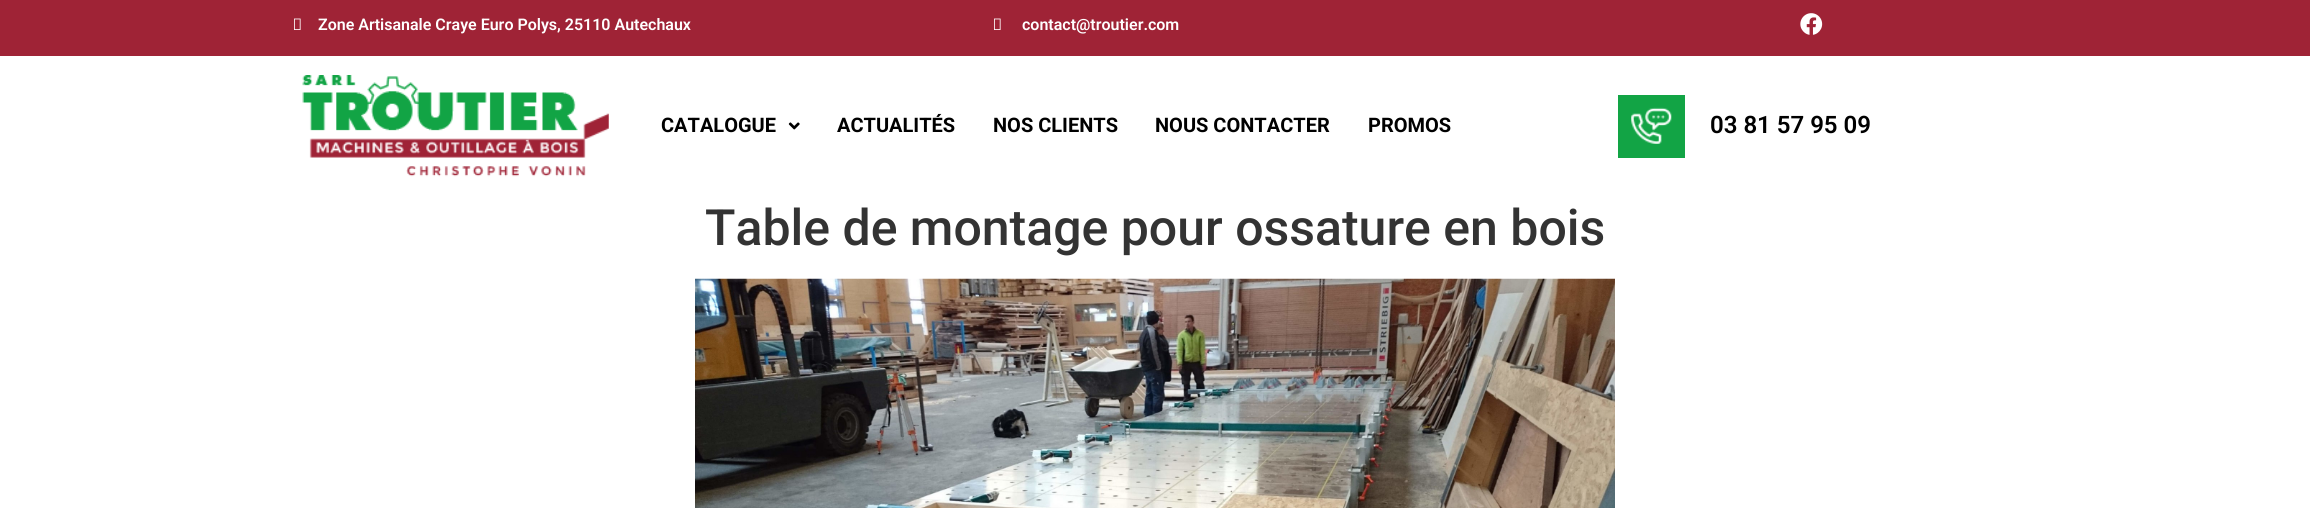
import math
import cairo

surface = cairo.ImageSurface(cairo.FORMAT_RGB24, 2310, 508)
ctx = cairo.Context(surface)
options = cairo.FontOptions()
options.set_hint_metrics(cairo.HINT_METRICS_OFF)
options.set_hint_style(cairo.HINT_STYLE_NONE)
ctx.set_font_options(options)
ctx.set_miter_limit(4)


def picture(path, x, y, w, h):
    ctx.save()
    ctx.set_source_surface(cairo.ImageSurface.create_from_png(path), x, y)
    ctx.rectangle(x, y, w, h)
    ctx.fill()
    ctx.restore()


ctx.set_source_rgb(1, 1, 1)
ctx.paint()
ctx.set_source_rgb(0.624, 0.137, 0.212)
ctx.rectangle(0, 0, 2310, 56)
ctx.fill()
picture("img1.png", 294, 18, 7, 12)
ctx.select_font_face("Roboto SemiBold")
ctx.set_font_size(16)
ctx.set_source_rgb(1, 1, 1)
ctx.move_to(318, 30)
ctx.show_text("Zone Artisanale Craye Euro Polys, 25110 Autechaux")
picture("img1.png", 994, 18, 7, 12)
ctx.move_to(1022, 30)
ctx.show_text("contact@troutier.com")
picture("img2.png", 1800, 13, 23, 22)
picture("img3.png", 302, 75, 307, 102)
ctx.select_font_face("Roboto", cairo.FONT_SLANT_NORMAL, cairo.FONT_WEIGHT_BOLD)
ctx.set_font_size(20)
ctx.set_source_rgb(0, 0, 0)
ctx.move_to(661, 132)
ctx.show_text("CATALOGUE")
picture("img4.png", 788, 122, 12, 8)
ctx.move_to(837, 132)
ctx.show_text("ACTUALITÉS")
ctx.move_to(993, 132)
ctx.show_text("NOS CLIENTS")
ctx.move_to(1155, 132)
ctx.show_text("NOUS CONTACTER")
ctx.move_to(1368, 132)
ctx.show_text("PROMOS")
ctx.set_source_rgb(0.071, 0.643, 0.271)
ctx.rectangle(1618, 95, 67, 63)
ctx.fill()
picture("img5.png", 1631, 107, 41, 37)
ctx.select_font_face("Roboto SemiBold")
ctx.set_font_size(24)
ctx.set_source_rgb(0, 0, 0)
ctx.move_to(1710, 133)
ctx.show_text("03 81 57 95 09")
ctx.select_font_face("Roboto Medium")
ctx.set_font_size(50)
ctx.set_source_rgb(0.2, 0.2, 0.2)
ctx.move_to(705, 245)
ctx.show_text("Table de montage pour ossature en bois")
picture("img6.png", 695, 278, 920, 230)
surface.write_to_png("page.png")
